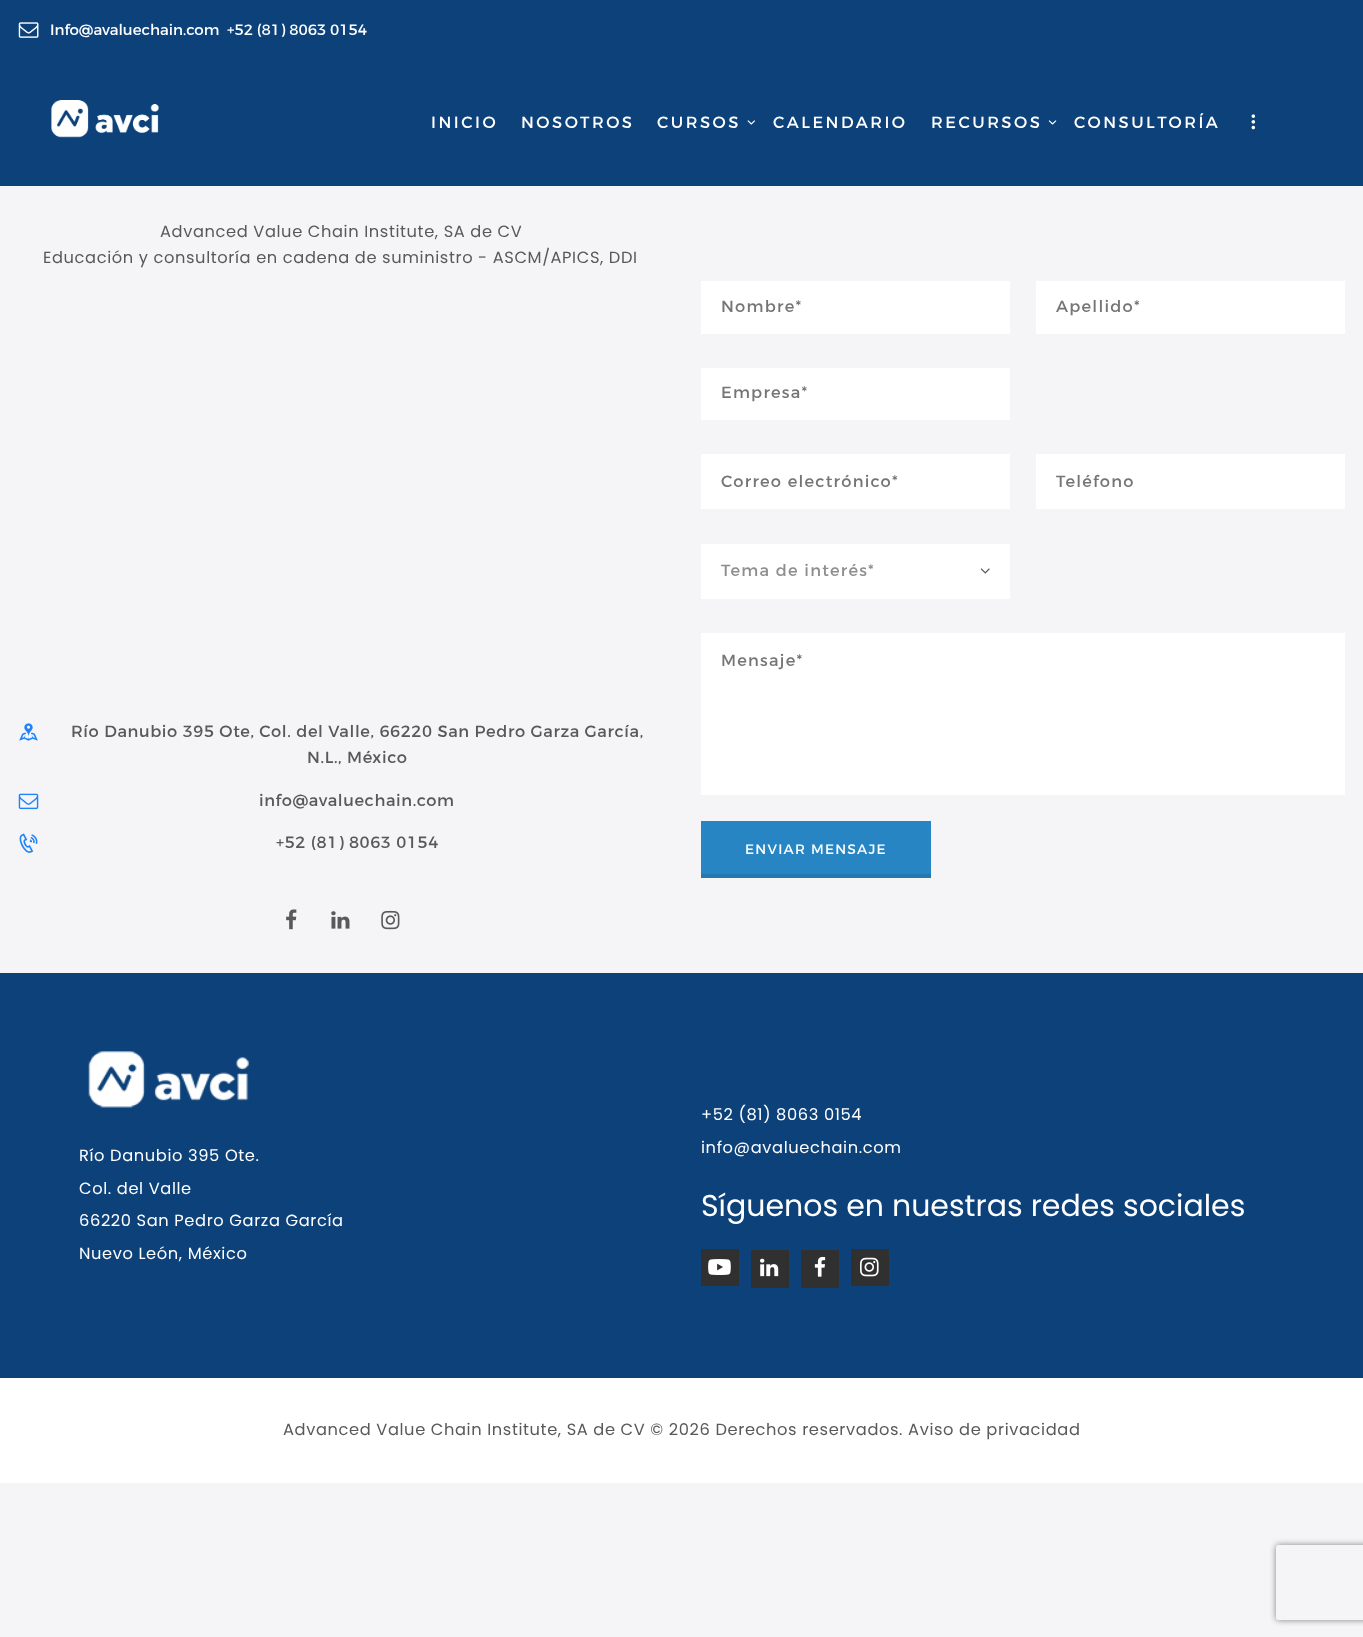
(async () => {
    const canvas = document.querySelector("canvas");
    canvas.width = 1363;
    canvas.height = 1637;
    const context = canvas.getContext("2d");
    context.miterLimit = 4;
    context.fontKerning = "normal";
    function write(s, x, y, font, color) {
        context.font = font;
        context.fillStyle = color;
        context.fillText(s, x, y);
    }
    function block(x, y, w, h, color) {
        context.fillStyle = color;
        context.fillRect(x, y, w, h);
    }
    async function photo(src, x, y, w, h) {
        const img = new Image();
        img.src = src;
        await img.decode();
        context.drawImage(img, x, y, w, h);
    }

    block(0, 0, 1363, 1637, "rgb(245, 245, 247)");
    block(0, 0, 1363, 186, "rgb(12, 65, 122)");
    await photo("media/1.png", 18, 22, 21, 16);
    write("Info@avaluechain.com", 50, 35, "15px Montserrat", "rgb(255, 255, 255)");
    write("+52 (81) 8063 0154", 227, 35, "15px Montserrat", "rgb(255, 255, 255)");
    await photo("media/2.png", 51, 100, 108, 38);
    context.letterSpacing = "2.5px";
    write("INICIO", 431, 128, "16.25px Montserrat", "rgb(255, 255, 255)");
    write("NOSOTROS", 521, 128, "16.25px Montserrat", "rgb(255, 255, 255)");
    write("CURSOS", 657, 128, "16.25px Montserrat", "rgb(255, 255, 255)");
    await photo("media/3.png", 747, 120, 8, 5);
    write("CALENDARIO", 773, 128, "16.25px Montserrat", "rgb(255, 255, 255)");
    write("RECURSOS", 931, 128, "16.25px Montserrat", "rgb(255, 255, 255)");
    await photo("media/4.png", 1048, 120, 9, 5);
    write("CONSULTORÍA", 1074, 128, "16.25px Montserrat", "rgb(255, 255, 255)");
    await photo("media/5.png", 1251, 114, 5, 16);
    context.letterSpacing = "0.62px";
    write("Advanced Value Chain Institute, SA de CV", 160, 237, "16.25px Poppins", "rgb(89, 89, 89)");
    write("Educación y consultoría en cadena de suministro - ASCM/APICS, DDI", 43, 263, "16.25px Poppins", "rgb(89, 89, 89)");
    await photo("media/6.png", 19, 723, 19, 18);
    write("Río Danubio 395 Ote, Col. del Valle, 66220 San Pedro Garza García,", 71, 737, "16.25px Montserrat", "rgb(89, 89, 89)");
    write("N.L., México", 307, 763, "16.25px Montserrat", "rgb(89, 89, 89)");
    await photo("media/7.png", 18, 793, 21, 17);
    write("info@avaluechain.com", 259, 806, "16.25px Montserrat", "rgb(89, 89, 89)");
    await photo("media/8.png", 19, 833, 19, 20);
    write("+52 (81) 8063 0154", 276, 848, "16.25px Montserrat", "rgb(89, 89, 89)");
    await photo("media/9.png", 286, 909, 11, 21);
    await photo("media/10.png", 331, 911, 19, 18);
    await photo("media/11.png", 381, 910, 19, 20);
    block(701, 281, 309, 53, "rgb(255, 255, 255)");
    context.letterSpacing = "1.25px";
    write("Nombre*", 721, 312, "16.25px Montserrat", "rgb(117, 117, 117)");
    block(1036, 281, 309, 53, "rgb(255, 255, 255)");
    write("Apellido*", 1056, 312, "16.25px Montserrat", "rgb(117, 117, 117)");
    block(701, 368, 309, 52, "rgb(255, 255, 255)");
    write("Empresa*", 721, 398, "16.25px Montserrat", "rgb(117, 117, 117)");
    block(701, 454, 309, 55, "rgb(255, 255, 255)");
    write("Correo electrónico*", 721, 487, "16.25px Montserrat", "rgb(117, 117, 117)");
    block(1036, 454, 309, 55, "rgb(255, 255, 255)");
    write("Teléfono", 1056, 487, "16.25px Montserrat", "rgb(117, 117, 117)");
    block(701, 544, 309, 55, "rgb(255, 255, 255)");
    write("Tema de interés*", 721, 576, "16.25px Montserrat", "rgb(142, 142, 142)");
    await photo("media/12.png", 980, 568, 10, 6);
    block(701, 633, 644, 162, "rgb(255, 255, 255)");
    write("Mensaje*", 721, 666, "16.25px Montserrat", "rgb(117, 117, 117)");
    block(701, 821, 230, 53, "rgb(39, 133, 196)");
    block(701, 874, 230, 4, "rgb(35, 120, 176)");
    write("ENVIAR MENSAJE", 745, 854, "13.75px Montserrat", "rgb(255, 255, 255)");
    block(0, 973, 1363, 405, "rgb(12, 65, 122)");
    await photo("media/13.png", 88, 1051, 161, 57);
    context.letterSpacing = "0.62px";
    write("Río Danubio 395 Ote.", 79, 1161, "16.25px Poppins", "rgb(255, 255, 255)");
    write("Col. del Valle", 79, 1194, "16.25px Poppins", "rgb(255, 255, 255)");
    write("66220 San Pedro Garza García", 79, 1226, "16.25px Poppins", "rgb(255, 255, 255)");
    write("Nuevo León, México", 79, 1259, "16.25px Poppins", "rgb(255, 255, 255)");
    write("+52 (81) 8063 0154", 701, 1120, "16.25px Poppins", "rgb(255, 255, 255)");
    write("info@avaluechain.com", 701, 1153, "16.25px Poppins", "rgb(255, 255, 255)");
    context.letterSpacing = "0px";
    write("Síguenos en nuestras redes sociales", 701, 1216, "30px Poppins", "rgb(255, 255, 255)");
    block(701, 1249, 38, 37, "rgb(48, 48, 48)");
    await photo("media/14.png", 708, 1259, 23, 16);
    block(751, 1250, 38, 38, "rgb(48, 48, 48)");
    await photo("media/15.png", 760, 1258, 19, 19);
    block(801, 1250, 38, 38, "rgb(48, 48, 48)");
    await photo("media/16.png", 814, 1256, 12, 21);
    block(851, 1249, 38, 37, "rgb(48, 48, 48)");
    await photo("media/17.png", 860, 1257, 19, 20);
    block(0, 1378, 1363, 105, "rgb(255, 255, 255)");
    context.letterSpacing = "0.62px";
    write("Advanced Value Chain Institute, SA de CV © 2026 Derechos reservados. Aviso de privacidad", 283, 1435, "16.25px Poppins", "rgb(89, 89, 89)");
    context.save();
    context.beginPath();
    context.moveTo(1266, 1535);
    context.lineTo(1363, 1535);
    context.lineTo(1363, 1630);
    context.lineTo(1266, 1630);
    context.closePath();
    context.moveTo(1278.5, 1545);
    context.lineTo(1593.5, 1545);
    context.bezierCurveTo(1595, 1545, 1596, 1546, 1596, 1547.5);
    context.lineTo(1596, 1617.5);
    context.bezierCurveTo(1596, 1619, 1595, 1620, 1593.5, 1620);
    context.lineTo(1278.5, 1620);
    context.bezierCurveTo(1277, 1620, 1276, 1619, 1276, 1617.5);
    context.lineTo(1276, 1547.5);
    context.bezierCurveTo(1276, 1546, 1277, 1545, 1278.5, 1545);
    context.closePath();
    context.clip("evenodd");
    context.fillStyle = "rgb(128, 128, 128)";
    context.filter = "blur(3px)";
    context.beginPath();
    context.roundRect(1276, 1545, 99, 75, 2.5);
    context.fill();
    context.filter = "none";
    context.restore();
})();
